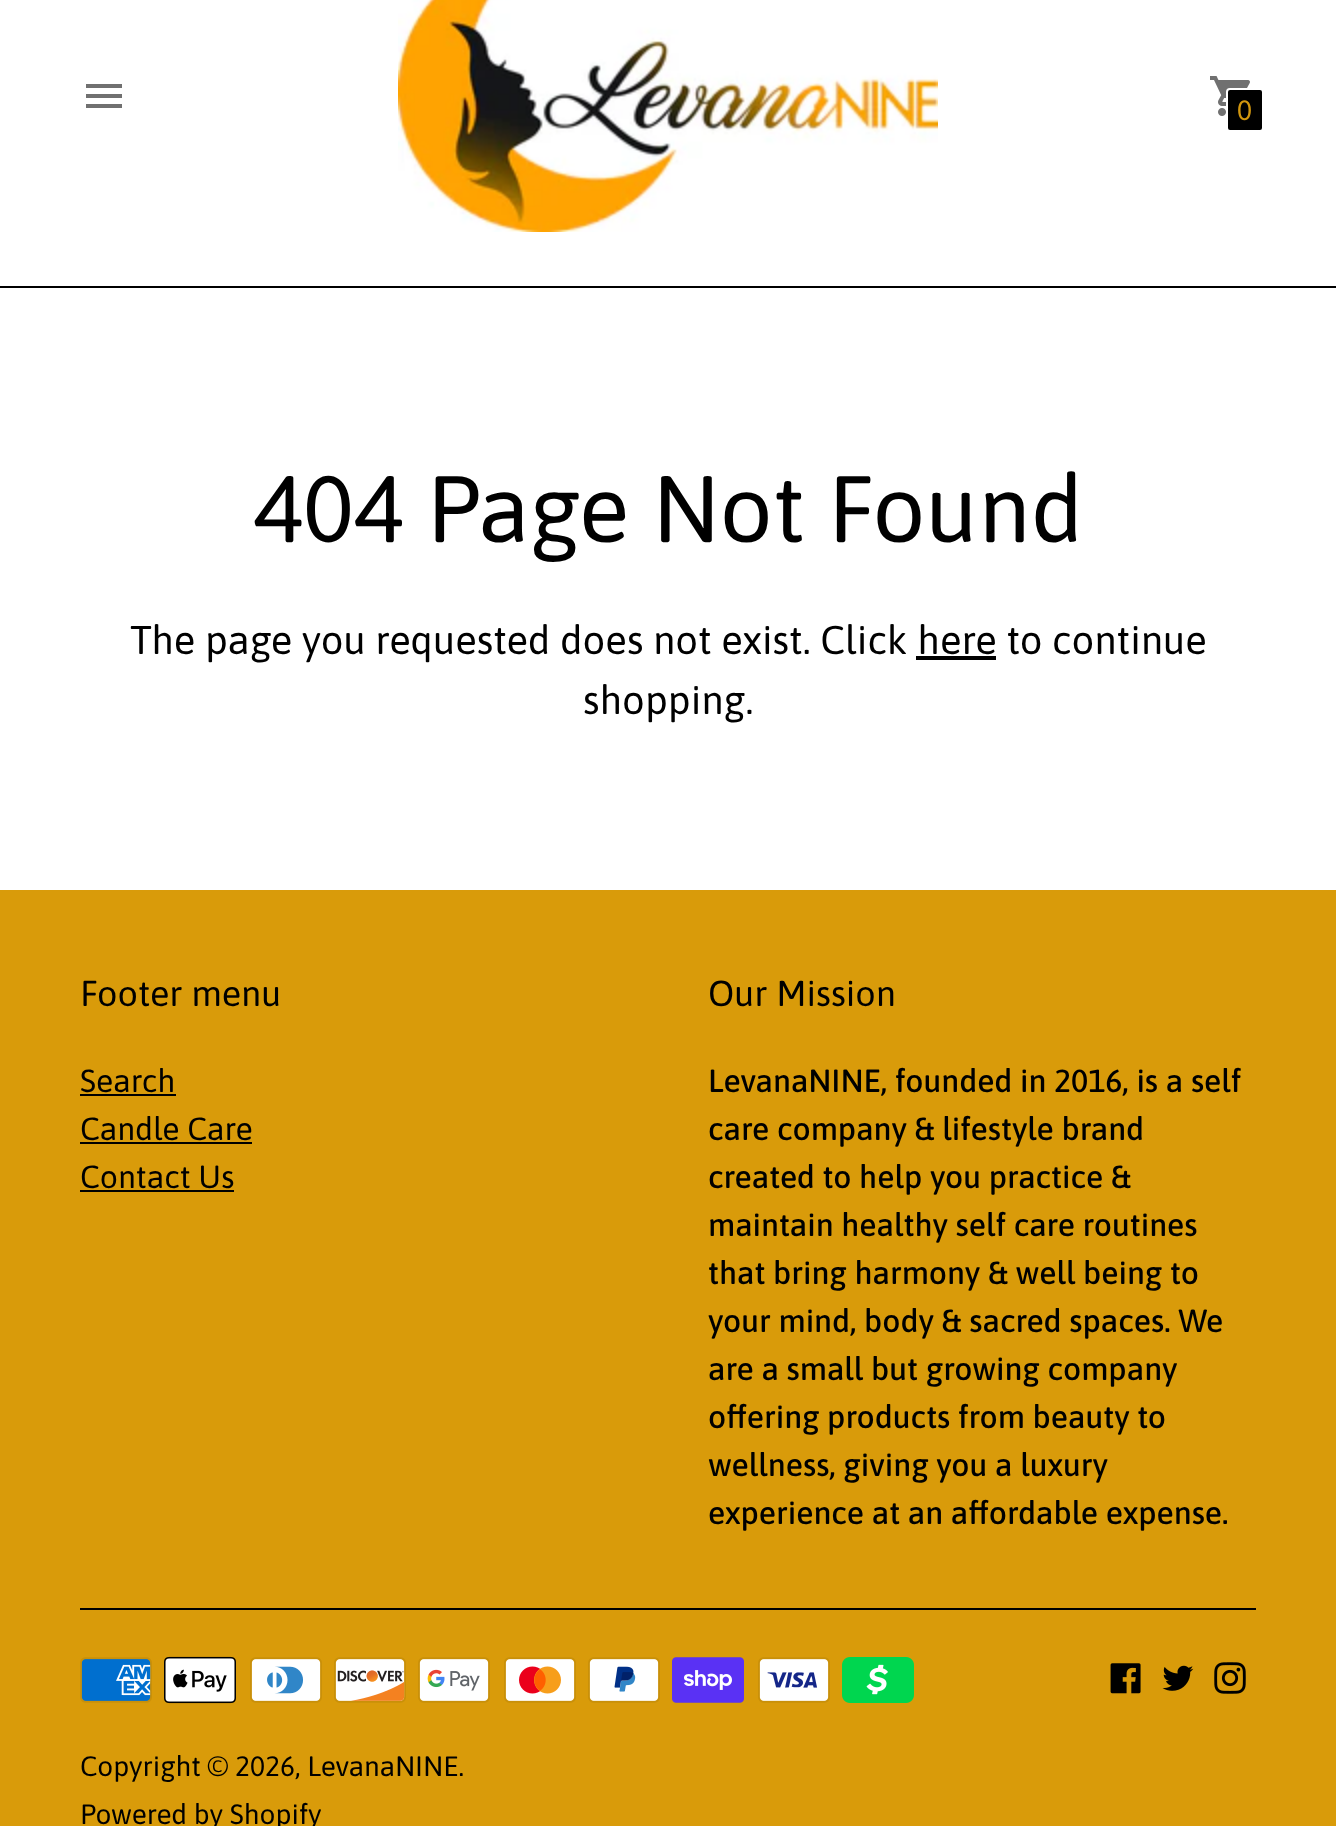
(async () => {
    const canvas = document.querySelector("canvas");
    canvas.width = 1336;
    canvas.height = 1826;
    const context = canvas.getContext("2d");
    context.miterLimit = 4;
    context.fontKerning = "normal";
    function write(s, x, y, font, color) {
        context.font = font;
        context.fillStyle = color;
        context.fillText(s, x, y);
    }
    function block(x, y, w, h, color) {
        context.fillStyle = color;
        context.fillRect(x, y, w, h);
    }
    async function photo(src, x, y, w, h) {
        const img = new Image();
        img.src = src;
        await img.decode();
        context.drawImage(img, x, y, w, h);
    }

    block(0, 0, 1336, 1826, "rgb(255, 255, 255)");
    block(0, 286, 1336, 2, "rgb(0, 0, 0)");
    context.fillStyle = "rgb(112, 112, 112)";
    context.beginPath();
    context.moveTo(86, 108);
    context.lineTo(122, 108);
    context.lineTo(122, 104);
    context.lineTo(86, 104);
    context.closePath();
    context.moveTo(86, 98);
    context.lineTo(122, 98);
    context.lineTo(122, 94);
    context.lineTo(86, 94);
    context.closePath();
    context.moveTo(86, 84);
    context.lineTo(86, 88);
    context.lineTo(122, 88);
    context.lineTo(122, 84);
    context.closePath();
    context.fill();
    await photo("media/1.png", 398, 0, 540, 232);
    await photo("media/2.png", 1210, 76, 40, 40);
    context.fillStyle = "rgb(0, 0, 0)";
    context.beginPath();
    context.roundRect(1227, 89, 36, 42, 3);
    context.fill();
    context.strokeStyle = "rgb(255, 255, 255)";
    context.lineWidth = 2;
    context.stroke();
    write("0", 1237, 120, "28px Asap", "rgb(209, 150, 14)");
    write("404 Page Not Found", 253, 542, "94px Asap", "rgb(0, 0, 0)");
    write("The page you requested does not exist. Click here to continue", 130, 654, "40px Asap", "rgb(0, 0, 0)");
    block(916, 656, 80, 4, "rgb(0, 0, 0)");
    write("shopping.", 583, 714, "40px Asap", "rgb(0, 0, 0)");
    block(0, 890, 1336, 936, "rgb(217, 155, 10)");
    write("Footer menu", 80, 1006, "36px Asap", "rgb(0, 0, 0)");
    write("Search", 80, 1092, "32px Asap", "rgb(0, 0, 0)");
    block(80, 1094, 96, 2, "rgb(0, 0, 0)");
    write("Candle Care", 80, 1140, "32px Asap", "rgb(0, 0, 0)");
    block(80, 1142, 172, 2, "rgb(0, 0, 0)");
    write("Contact Us", 80, 1188, "32px Asap", "rgb(0, 0, 0)");
    block(80, 1190, 154, 2, "rgb(0, 0, 0)");
    write("Our Mission", 708, 1006, "36px Asap", "rgb(0, 0, 0)");
    write("LevanaNINE, founded in 2016, is a self", 708, 1092, "500 32px Asap", "rgb(0, 0, 0)");
    write("care company & lifestyle brand", 708, 1140, "500 32px Asap", "rgb(0, 0, 0)");
    write("created to help you practice &", 708, 1188, "500 32px Asap", "rgb(0, 0, 0)");
    write("maintain healthy self care routines", 708, 1236, "500 32px Asap", "rgb(0, 0, 0)");
    write("that bring harmony & well being to", 708, 1284, "500 32px Asap", "rgb(0, 0, 0)");
    write("your mind, body & sacred spaces. We", 708, 1332, "500 32px Asap", "rgb(0, 0, 0)");
    write("are a small but growing company", 708, 1380, "500 32px Asap", "rgb(0, 0, 0)");
    write("offering products from beauty to", 708, 1428, "500 32px Asap", "rgb(0, 0, 0)");
    write("wellness, giving you a luxury", 708, 1476, "500 32px Asap", "rgb(0, 0, 0)");
    write("experience at an affordable expense.", 708, 1524, "500 32px Asap", "rgb(0, 0, 0)");
    block(80, 1608, 1176, 2, "rgb(0, 0, 0)");
    await photo("media/3.png", 1110, 1663, 31, 31);
    await photo("media/4.png", 1162, 1665, 32, 26);
    await photo("media/5.png", 1214, 1662, 32, 32);
    await photo("media/6.png", 80, 1657, 72, 46);
    await photo("media/7.png", 164, 1656, 72, 48);
    await photo("media/8.png", 250, 1657, 72, 46);
    await photo("media/9.png", 334, 1657, 72, 46);
    await photo("media/10.png", 418, 1657, 72, 46);
    await photo("media/11.png", 504, 1657, 72, 46);
    await photo("media/12.png", 588, 1657, 72, 46);
    await photo("media/13.png", 672, 1657, 72, 46);
    await photo("media/14.png", 758, 1657, 72, 46);
    await photo("media/15.png", 842, 1657, 72, 46);
    write("Copyright © 2026, LevanaNINE.", 80, 1776, "28px Asap", "rgb(0, 0, 0)");
    write("Powered by Shopify", 80, 1824, "28px Asap", "rgb(0, 0, 0)");
})();
